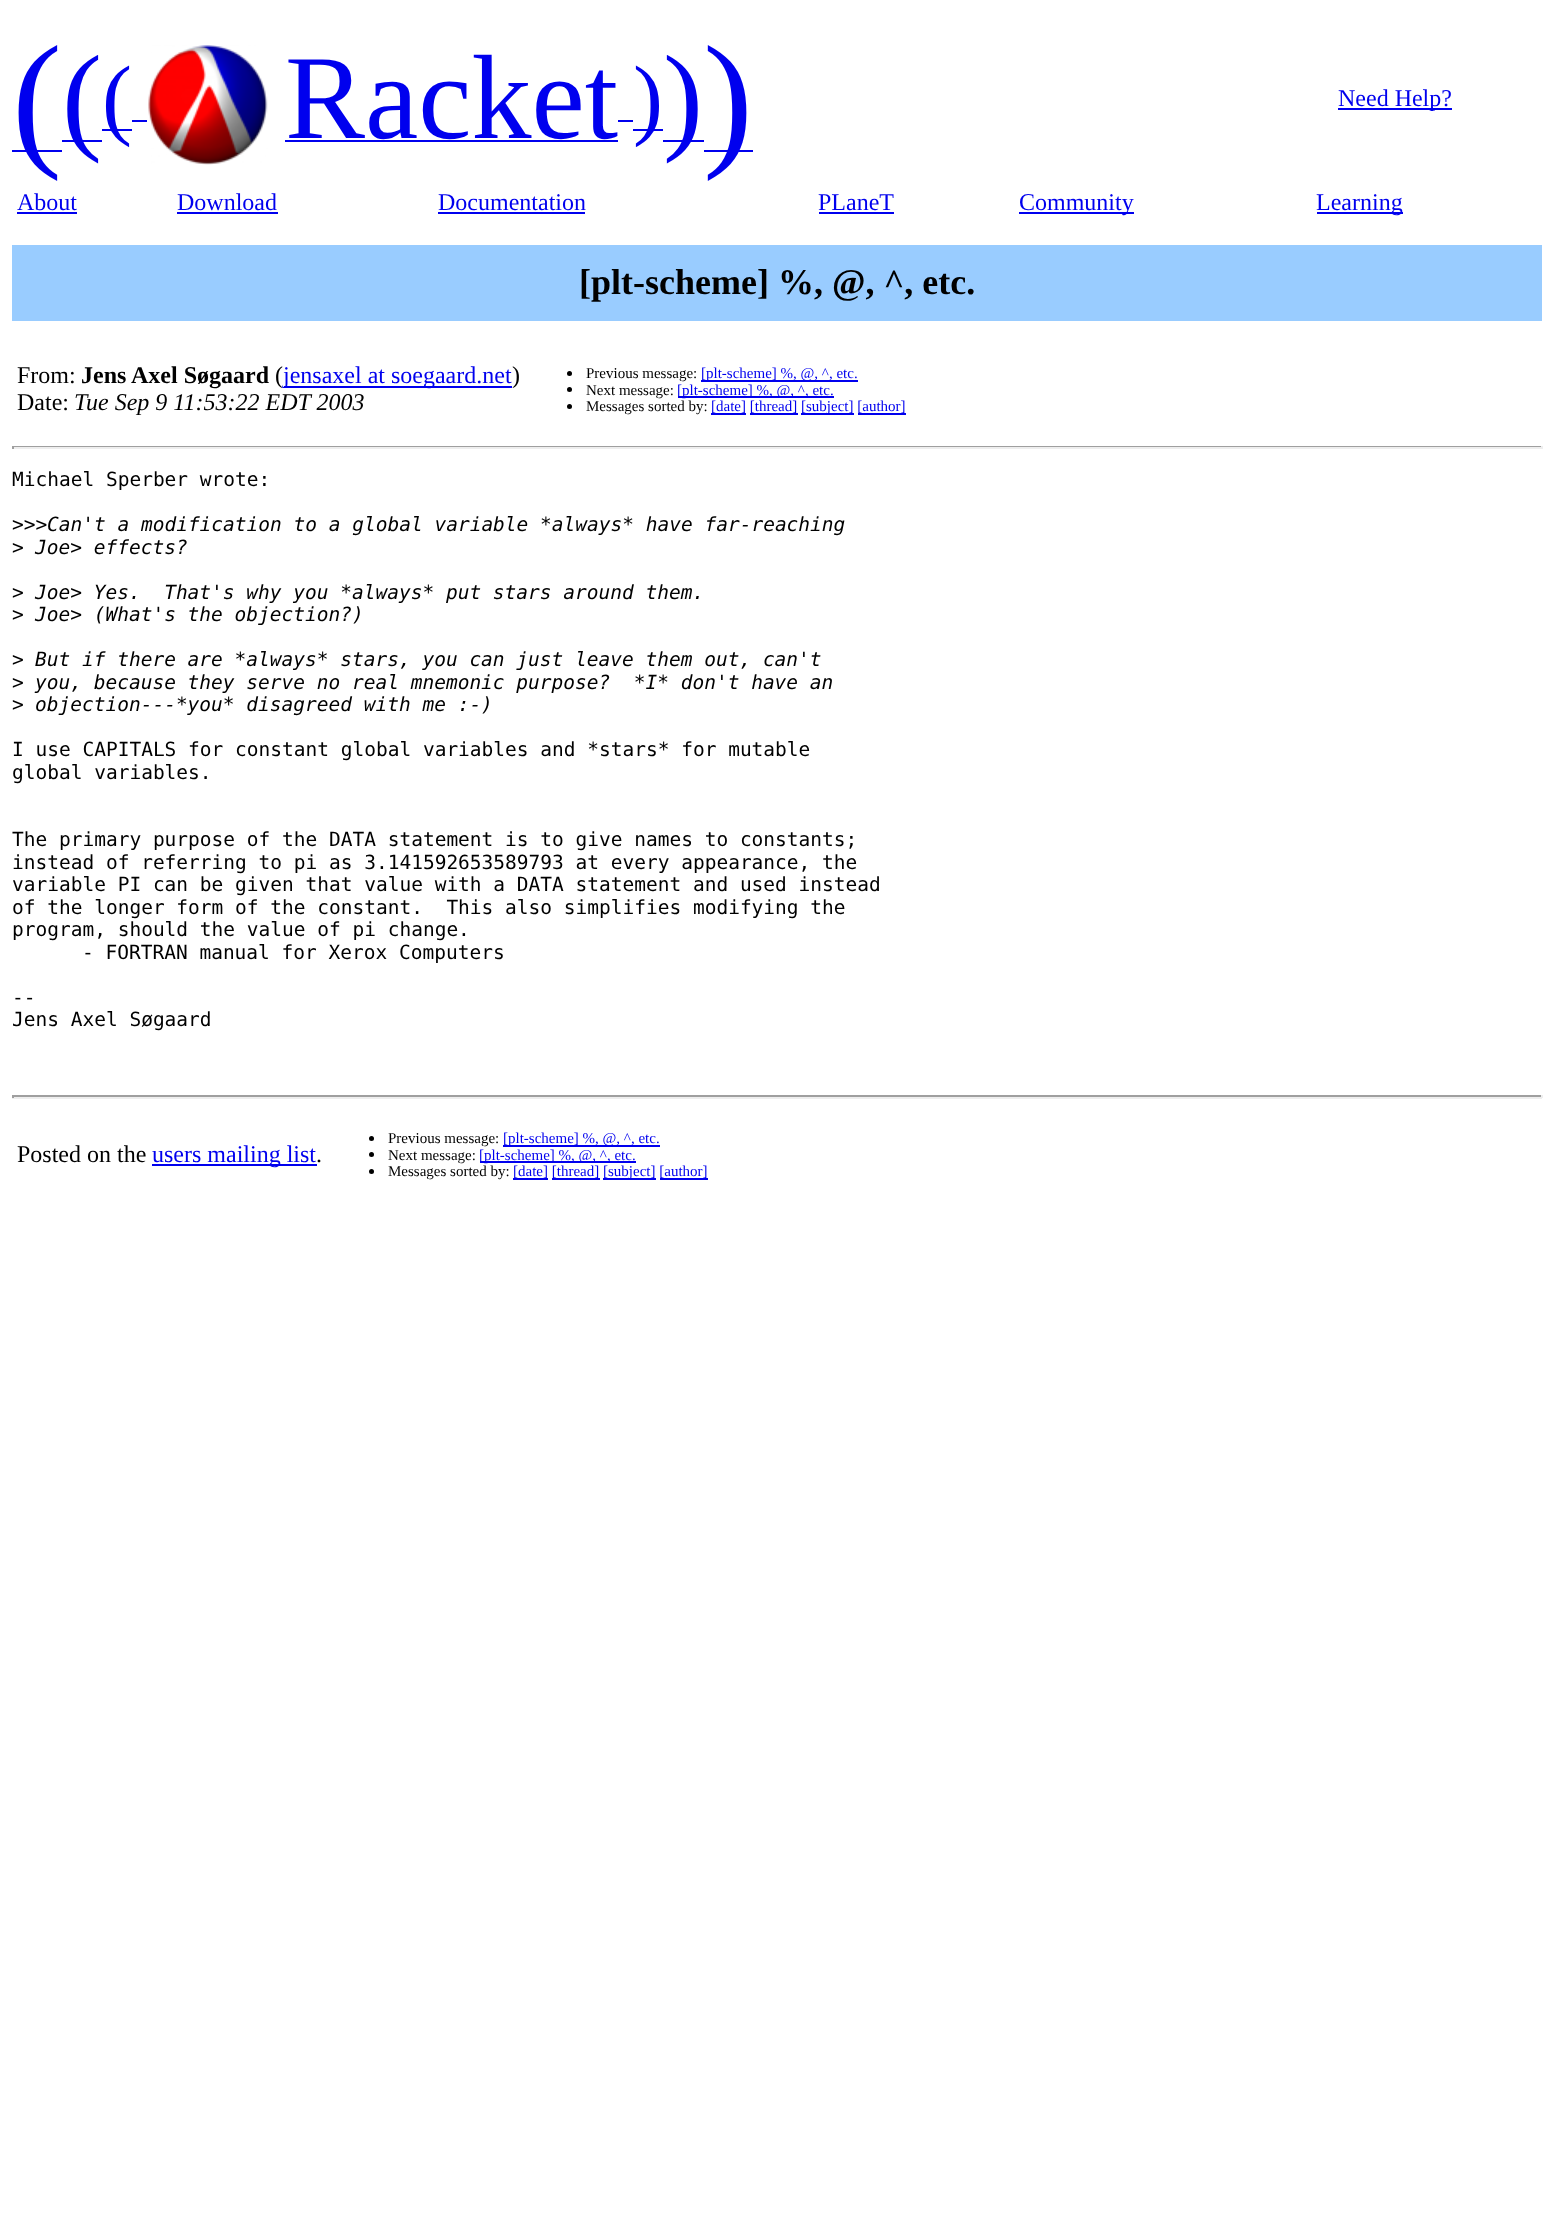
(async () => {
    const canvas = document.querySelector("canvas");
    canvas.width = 1553;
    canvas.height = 2213;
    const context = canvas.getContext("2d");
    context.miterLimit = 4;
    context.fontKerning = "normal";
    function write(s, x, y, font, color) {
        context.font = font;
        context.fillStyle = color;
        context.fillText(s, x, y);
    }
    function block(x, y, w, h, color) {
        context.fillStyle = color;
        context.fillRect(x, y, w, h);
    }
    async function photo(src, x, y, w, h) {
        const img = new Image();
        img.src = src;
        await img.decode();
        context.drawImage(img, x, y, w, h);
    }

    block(0, 0, 1553, 2213, "rgb(255, 255, 255)");
    block(12, 150, 50, 2, "rgb(0, 0, 238)");
    write("(", 12, 149, "150px Liberation Serif", "rgb(0, 0, 238)");
    block(62, 140, 40, 2, "rgb(0, 0, 238)");
    write("(", 62, 138, "120px Liberation Serif", "rgb(0, 0, 238)");
    block(102, 129, 30, 2, "rgb(0, 0, 238)");
    write("(", 102, 128, "90px Liberation Serif", "rgb(0, 0, 238)");
    block(132, 120, 15, 2, "rgb(0, 0, 238)");
    await photo("media/1.png", 148, 45, 120, 120);
    write("Racket", 285, 138, "120px Liberation Serif", "rgb(0, 0, 238)");
    block(633, 129, 30, 2, "rgb(0, 0, 238)");
    write(")", 633, 128, "90px Liberation Serif", "rgb(0, 0, 238)");
    block(285, 140, 333, 2, "rgb(0, 0, 238)");
    block(618, 120, 15, 2, "rgb(0, 0, 238)");
    block(663, 140, 41, 2, "rgb(0, 0, 238)");
    write(")", 663, 138, "120px Liberation Serif", "rgb(0, 0, 238)");
    block(704, 150, 49, 2, "rgb(0, 0, 238)");
    write(")", 703, 149, "150px Liberation Serif", "rgb(0, 0, 238)");
    block(1338, 108, 114, 2, "rgb(0, 0, 238)");
    write("Need Help?", 1338, 106, "24px Liberation Serif", "rgb(0, 0, 238)");
    write("About", 17, 210, "24px Liberation Serif", "rgb(0, 0, 238)");
    block(17, 212, 60, 2, "rgb(0, 0, 238)");
    write("Download", 177, 210, "24px Liberation Serif", "rgb(0, 0, 238)");
    block(177, 212, 101, 2, "rgb(0, 0, 238)");
    write("Documentation", 438, 210, "24px Liberation Serif", "rgb(0, 0, 238)");
    block(438, 212, 147, 2, "rgb(0, 0, 238)");
    write("PLaneT", 818, 210, "24px Liberation Serif", "rgb(0, 0, 238)");
    block(819, 212, 75, 2, "rgb(0, 0, 238)");
    block(1019, 212, 115, 2, "rgb(0, 0, 238)");
    write("Community", 1019, 210, "24px Liberation Serif", "rgb(0, 0, 238)");
    block(1317, 212, 86, 2, "rgb(0, 0, 238)");
    write("Learning", 1316, 210, "24px Liberation Serif", "rgb(0, 0, 238)");
    block(12, 245, 1530, 76, "rgb(153, 204, 255)");
    write("[plt-scheme] %, @, ^, etc.", 579, 294, "bold 36px Liberation Serif", "rgb(0, 0, 0)");
    write("From:", 17, 383, "24px Liberation Serif", "rgb(0, 0, 0)");
    write("Jens Axel Søgaard", 81, 383, "bold 24px Liberation Serif", "rgb(0, 0, 0)");
    write("(", 275, 383, "24px Liberation Serif", "rgb(0, 0, 0)");
    block(284, 386, 228, 2, "rgb(0, 0, 238)");
    write("jensaxel at soegaard.net", 283, 383, "24px Liberation Serif", "rgb(0, 0, 238)");
    write(")", 512, 383, "24px Liberation Serif", "rgb(0, 0, 0)");
    write("Date:", 17, 410, "24px Liberation Serif", "rgb(0, 0, 0)");
    write("Tue Sep 9 11:53:22 EDT 2003", 74, 410, "italic 24px Liberation Serif", "rgb(0, 0, 0)");
    context.beginPath();
    context.arc(569.5, 373.5, 2.5, 0, Math.PI * 2);
    context.fill();
    write("Previous message:", 586, 378, "15px Liberation Serif", "rgb(0, 0, 0)");
    block(701, 380, 157, 2, "rgb(0, 0, 238)");
    write("[plt-scheme] %, @, ^, etc.", 701, 378, "15px Liberation Serif", "rgb(0, 0, 238)");
    context.fillStyle = "rgb(0, 0, 0)";
    context.beginPath();
    context.arc(569.5, 389.5, 2.5, 0, Math.PI * 2);
    context.fill();
    write("Next message:", 586, 395, "15px Liberation Serif", "rgb(0, 0, 0)");
    block(678, 396, 156, 2, "rgb(0, 0, 238)");
    write("[plt-scheme] %, @, ^, etc.", 677, 395, "15px Liberation Serif", "rgb(0, 0, 238)");
    context.fillStyle = "rgb(0, 0, 0)";
    context.beginPath();
    context.arc(569.5, 406.5, 2.5, 0, Math.PI * 2);
    context.fill();
    write("Messages sorted by:", 586, 411, "15px Liberation Serif", "rgb(0, 0, 0)");
    write("[date] [thread]", 711, 411, "15px Liberation Serif", "rgb(0, 0, 238)");
    block(711, 413, 35, 2, "rgb(0, 0, 238)");
    block(801, 413, 53, 2, "rgb(0, 0, 238)");
    write("[subject] [author]", 801, 411, "15px Liberation Serif", "rgb(0, 0, 238)");
    block(750, 413, 48, 2, "rgb(0, 0, 238)");
    block(858, 413, 48, 2, "rgb(0, 0, 238)");
    block(12, 446, 1530, 1, "rgb(159, 159, 159)");
    block(1541, 446, 2, 3, "rgb(238, 238, 238)");
    block(12, 447, 1530, 2, "rgb(238, 238, 238)");
    block(12, 446, 2, 3, "rgb(159, 159, 159)");
    write("Michael Sperber wrote:", 12, 486, "19.5px DejaVu Sans Mono", "rgb(0, 0, 0)");
    write(">>>", 12, 531, "19.5px DejaVu Sans Mono", "rgb(0, 0, 0)");
    write("Can't a modification to a global variable *always* have far-reaching", 47, 531, "italic 19.5px DejaVu Sans Mono", "rgb(0, 0, 0)");
    write(">", 12, 554, "19.5px DejaVu Sans Mono", "rgb(0, 0, 0)");
    write("Joe> effects?", 35, 554, "italic 19.5px DejaVu Sans Mono", "rgb(0, 0, 0)");
    write(">", 12, 599, "19.5px DejaVu Sans Mono", "rgb(0, 0, 0)");
    write("Joe> Yes.  That's why you *always* put stars around them.", 35, 599, "italic 19.5px DejaVu Sans Mono", "rgb(0, 0, 0)");
    write(">", 12, 621, "19.5px DejaVu Sans Mono", "rgb(0, 0, 0)");
    write("Joe> (What's the objection?)", 35, 621, "italic 19.5px DejaVu Sans Mono", "rgb(0, 0, 0)");
    write(">", 12, 666, "19.5px DejaVu Sans Mono", "rgb(0, 0, 0)");
    write("But if there are *always* stars, you can just leave them out, can't", 35, 666, "italic 19.5px DejaVu Sans Mono", "rgb(0, 0, 0)");
    write(">", 12, 689, "19.5px DejaVu Sans Mono", "rgb(0, 0, 0)");
    write("you, because they serve no real mnemonic purpose?  *I* don't have an", 35, 689, "italic 19.5px DejaVu Sans Mono", "rgb(0, 0, 0)");
    write(">", 12, 711, "19.5px DejaVu Sans Mono", "rgb(0, 0, 0)");
    write("objection---*you* disagreed with me :-)", 35, 711, "italic 19.5px DejaVu Sans Mono", "rgb(0, 0, 0)");
    write("I use CAPITALS for constant global variables and *stars* for mutable", 12, 756, "19.5px DejaVu Sans Mono", "rgb(0, 0, 0)");
    write("global variables.", 12, 779, "19.5px DejaVu Sans Mono", "rgb(0, 0, 0)");
    write("The primary purpose of the DATA statement is to give names to constants;", 12, 846, "19.5px DejaVu Sans Mono", "rgb(0, 0, 0)");
    write("instead of referring to pi as 3.141592653589793 at every appearance, the", 12, 869, "19.5px DejaVu Sans Mono", "rgb(0, 0, 0)");
    write("variable PI can be given that value with a DATA statement and used instead", 12, 891, "19.5px DejaVu Sans Mono", "rgb(0, 0, 0)");
    write("of the longer form of the constant.  This also simplifies modifying the", 12, 914, "19.5px DejaVu Sans Mono", "rgb(0, 0, 0)");
    write("program, should the value of pi change.", 12, 936, "19.5px DejaVu Sans Mono", "rgb(0, 0, 0)");
    write("- FORTRAN manual for Xerox Computers", 82, 959, "19.5px DejaVu Sans Mono", "rgb(0, 0, 0)");
    write("--", 12, 1004, "19.5px DejaVu Sans Mono", "rgb(0, 0, 0)");
    write("Jens Axel Søgaard", 12, 1026, "19.5px DejaVu Sans Mono", "rgb(0, 0, 0)");
    block(12, 1095, 1530, 2, "rgb(159, 159, 159)");
    block(1541, 1095, 2, 3, "rgb(238, 238, 238)");
    block(12, 1097, 1530, 2, "rgb(238, 238, 238)");
    block(12, 1095, 2, 3, "rgb(159, 159, 159)");
    write("Posted on the", 17, 1162, "24px Liberation Serif", "rgb(0, 0, 0)");
    block(152, 1164, 165, 2, "rgb(0, 0, 238)");
    write("users mailing list", 152, 1162, "24px Liberation Serif", "rgb(0, 0, 238)");
    write(".", 316, 1162, "24px Liberation Serif", "rgb(0, 0, 0)");
    context.beginPath();
    context.arc(371.5, 1138.5, 2.5, 0, Math.PI * 2);
    context.fill();
    write("Previous message:", 388, 1143, "15px Liberation Serif", "rgb(0, 0, 0)");
    block(503, 1145, 157, 2, "rgb(0, 0, 238)");
    write("[plt-scheme] %, @, ^, etc.", 503, 1143, "15px Liberation Serif", "rgb(0, 0, 238)");
    context.fillStyle = "rgb(0, 0, 0)";
    context.beginPath();
    context.arc(371.5, 1154.5, 2.5, 0, Math.PI * 2);
    context.fill();
    write("Next message:", 388, 1160, "15px Liberation Serif", "rgb(0, 0, 0)");
    block(480, 1161, 156, 2, "rgb(0, 0, 238)");
    write("[plt-scheme] %, @, ^, etc.", 479, 1160, "15px Liberation Serif", "rgb(0, 0, 238)");
    context.fillStyle = "rgb(0, 0, 0)";
    context.beginPath();
    context.arc(371.5, 1171.5, 2.5, 0, Math.PI * 2);
    context.fill();
    write("Messages sorted by:", 388, 1176, "15px Liberation Serif", "rgb(0, 0, 0)");
    write("[date] [thread]", 513, 1176, "15px Liberation Serif", "rgb(0, 0, 238)");
    block(513, 1178, 35, 2, "rgb(0, 0, 238)");
    block(603, 1178, 53, 2, "rgb(0, 0, 238)");
    write("[subject] [author]", 603, 1176, "15px Liberation Serif", "rgb(0, 0, 238)");
    block(552, 1178, 48, 2, "rgb(0, 0, 238)");
    block(660, 1178, 48, 2, "rgb(0, 0, 238)");
})();
